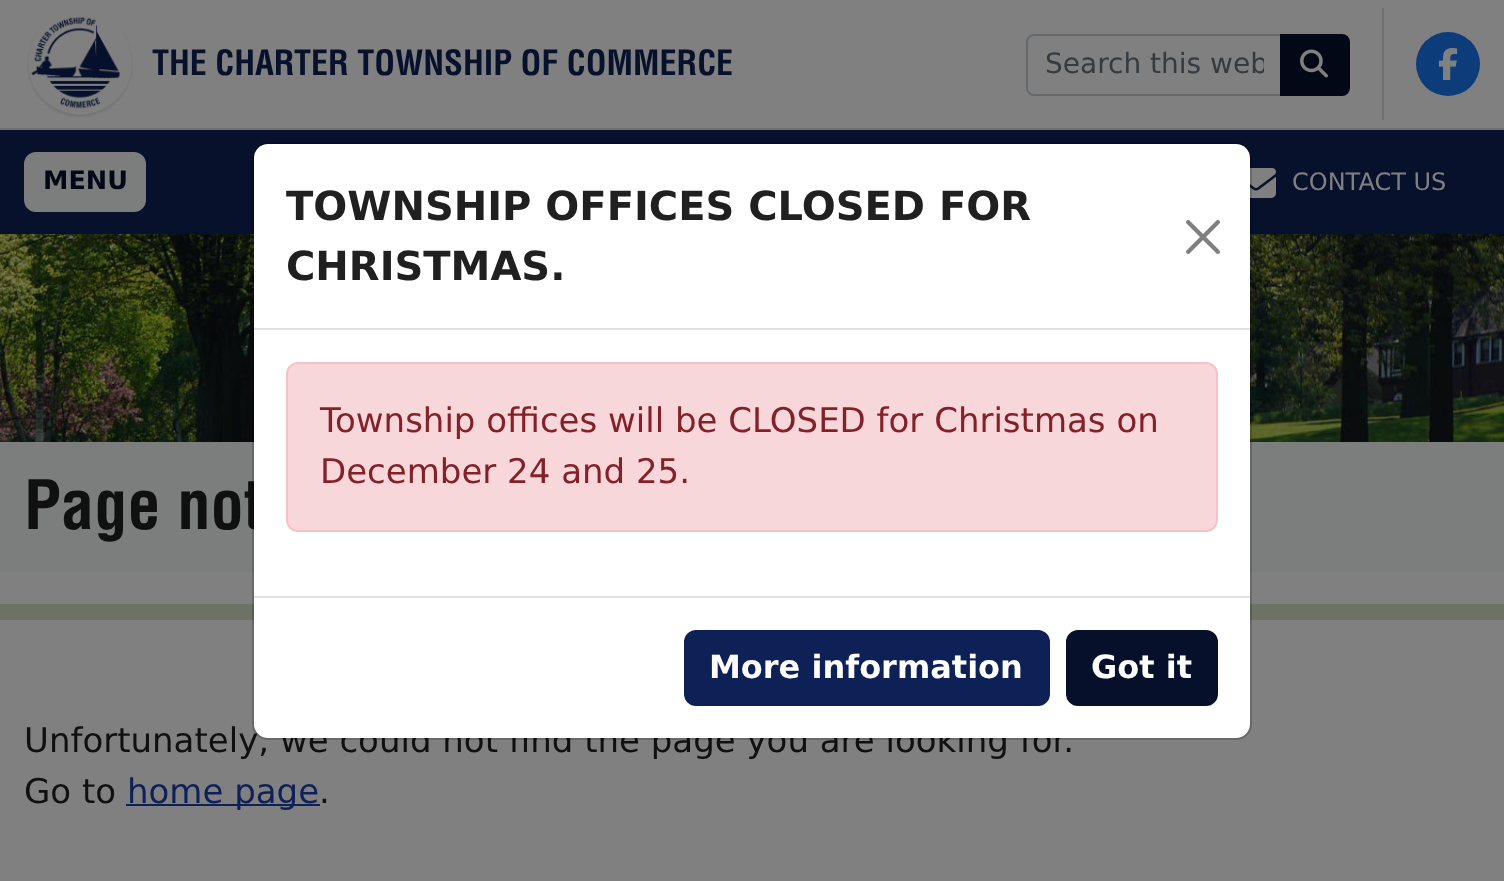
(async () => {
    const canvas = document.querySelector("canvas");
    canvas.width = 1504;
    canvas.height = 881;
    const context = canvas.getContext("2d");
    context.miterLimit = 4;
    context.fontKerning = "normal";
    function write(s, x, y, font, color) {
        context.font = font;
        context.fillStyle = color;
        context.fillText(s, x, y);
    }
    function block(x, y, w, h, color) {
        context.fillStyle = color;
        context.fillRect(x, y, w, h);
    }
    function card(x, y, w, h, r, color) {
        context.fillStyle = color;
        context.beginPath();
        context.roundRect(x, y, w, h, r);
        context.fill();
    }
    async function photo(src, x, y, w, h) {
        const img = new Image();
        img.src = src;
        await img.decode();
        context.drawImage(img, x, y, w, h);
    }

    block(0, 0, 1504, 881, "rgb(128, 128, 128)");
    block(0, 128, 1504, 2, "rgb(111, 113, 115)");
    await photo("media/1.png", 27, 16, 106, 101);
    write("THE CHARTER TOWNSHIP OF COMMERCE", 152, 75, "bold 34px Helvetica", "rgb(7, 17, 44)");
    context.beginPath();
    context.roundRect(1027, 35, 254, 60, [7, 0, 0, 7]);
    context.strokeStyle = "rgb(103, 106, 109)";
    context.lineWidth = 2;
    context.stroke();
    context.save();
    context.beginPath();
    context.rect(1044, 48, 220, 32);
    context.clip();
    write("Search this web", 1045, 73, "28px DejaVu Sans", "rgb(54, 59, 63)");
    context.restore();
    context.fillStyle = "rgb(3, 8, 22)";
    context.beginPath();
    context.roundRect(1281, 35, 68, 60, [0, 7, 7, 0]);
    context.fill();
    context.strokeStyle = "rgb(3, 8, 22)";
    context.stroke();
    await photo("media/2.png", 1300, 49, 28, 29);
    block(1382, 8, 2, 112, "rgb(111, 113, 115)");
    context.fillStyle = "rgb(12, 60, 121)";
    context.beginPath();
    context.arc(1448, 64, 32, 0, Math.PI * 2);
    context.fill();
    await photo("media/3.png", 1438, 48, 20, 32);
    block(0, 130, 1504, 104, "rgb(7, 17, 44)");
    context.fillStyle = "rgb(124, 125, 125)";
    context.beginPath();
    context.roundRect(25, 153, 120, 58, 11);
    context.fill();
    context.strokeStyle = "rgb(124, 125, 125)";
    context.stroke();
    write("MENU", 43, 189, "bold 25.5px DejaVu Sans", "rgb(3, 8, 22)");
    await photo("media/4.png", 1250, 168, 26, 30);
    write("CONTACT US", 1292, 190, "24px DejaVu Sans", "rgb(128, 128, 128)");
    block(0, 604, 1504, 16, "rgb(108, 114, 100)");
    await photo("media/5.png", 0, 234, 1504, 208);
    block(0, 442, 1504, 130, "rgb(124, 125, 125)");
    write("Page not", 24, 529, "bold 66.5px Helvetica", "rgb(16, 16, 16)");
    write("Unfortunately, we could not find the page you are looking for.", 24, 752, "34px DejaVu Sans", "rgb(16, 16, 16)");
    card(254, 144, 996, 594, 14, "rgb(255, 255, 255)");
    context.beginPath();
    context.roundRect(253, 143, 998, 596, 15);
    context.strokeStyle = "rgba(0, 0, 0, 0.18)";
    context.stroke();
    block(254, 328, 996, 2, "rgb(222, 226, 230)");
    write("TOWNSHIP OFFICES CLOSED FOR", 286, 220, "bold 40px DejaVu Sans", "rgb(32, 32, 32)");
    write("CHRISTMAS.", 286, 280, "bold 40px DejaVu Sans", "rgb(32, 32, 32)");
    await photo("media/6.png", 1186, 220, 34, 34);
    context.fillStyle = "rgb(248, 215, 218)";
    context.beginPath();
    context.roundRect(287, 363, 930, 168, 11);
    context.fill();
    context.strokeStyle = "rgb(245, 194, 199)";
    context.stroke();
    write("Township offices will be CLOSED for Christmas on", 320, 432, "34px DejaVu Sans", "rgb(132, 32, 41)");
    write("December 24 and 25.", 320, 483, "34px DejaVu Sans", "rgb(132, 32, 41)");
    block(254, 596, 996, 2, "rgb(222, 226, 230)");
    context.fillStyle = "rgb(13, 33, 87)";
    context.beginPath();
    context.roundRect(685, 631, 364, 74, 11);
    context.fill();
    context.strokeStyle = "rgb(13, 33, 87)";
    context.stroke();
    write("More information", 709, 678, "bold 32px DejaVu Sans", "rgb(255, 255, 255)");
    context.fillStyle = "rgb(6, 16, 43)";
    context.beginPath();
    context.roundRect(1067, 631, 150, 74, 11);
    context.fill();
    context.strokeStyle = "rgb(6, 16, 43)";
    context.stroke();
    write("Got it", 1091, 678, "bold 32px DejaVu Sans", "rgb(255, 255, 255)");
    write("Go to", 24, 803, "34px DejaVu Sans", "rgb(16, 16, 16)");
    block(126, 804, 194, 2, "rgb(13, 33, 88)");
    write("home page", 127, 803, "34px DejaVu Sans", "rgb(13, 33, 88)");
    write(".", 319, 803, "34px DejaVu Sans", "rgb(16, 16, 16)");
})();
